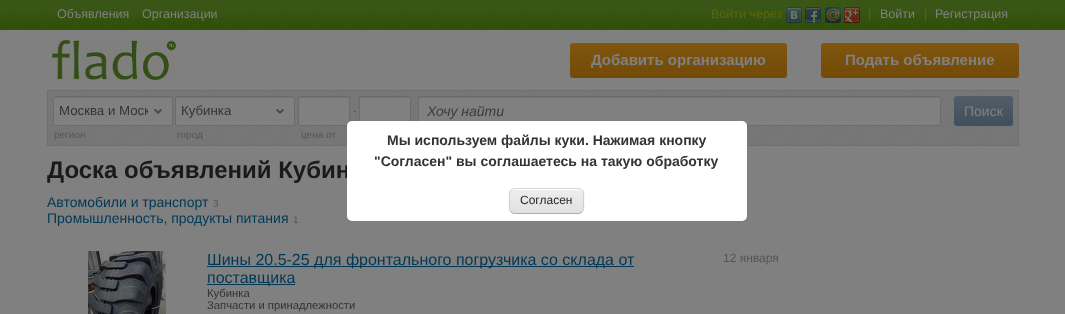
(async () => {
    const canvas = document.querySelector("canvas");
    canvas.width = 1065;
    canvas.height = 314;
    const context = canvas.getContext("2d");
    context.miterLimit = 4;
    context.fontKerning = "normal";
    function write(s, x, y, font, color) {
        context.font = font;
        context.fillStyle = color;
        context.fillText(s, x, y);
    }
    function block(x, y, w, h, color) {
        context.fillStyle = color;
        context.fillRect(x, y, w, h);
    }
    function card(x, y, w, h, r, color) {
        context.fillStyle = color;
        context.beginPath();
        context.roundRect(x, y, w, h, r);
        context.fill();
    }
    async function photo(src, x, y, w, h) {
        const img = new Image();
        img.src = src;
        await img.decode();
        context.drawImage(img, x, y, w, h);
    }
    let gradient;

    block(0, 0, 1065, 314, "rgb(128, 128, 128)");
    await photo("media/1.png", 0, 0, 1065, 30);
    write("Объявления", 57, 18, "12.5px Liberation Sans", "rgb(128, 128, 128)");
    write("Организации", 142, 18, "12.5px Liberation Sans", "rgb(128, 128, 128)");
    write("Войти через", 711, 18, "12.5px Liberation Sans", "rgb(92, 103, 13)");
    await photo("media/2.png", 786, 7, 16, 16);
    await photo("media/3.png", 805, 7, 16, 16);
    await photo("media/4.png", 825, 7, 16, 16);
    await photo("media/5.png", 844, 7, 16, 16);
    write("|", 868, 18, "12.5px Liberation Sans", "rgb(92, 103, 13)");
    write("Войти", 880, 18, "12.5px Liberation Sans", "rgb(128, 128, 128)");
    write("|", 924, 18, "12.5px Liberation Sans", "rgb(92, 103, 13)");
    write("Регистрация", 935, 18, "12.5px Liberation Sans", "rgb(128, 128, 128)");
    await photo("media/6.png", 52, 40, 124, 40);
    gradient = context.createLinearGradient(679, 43, 679, 78);
    gradient.addColorStop(0, "rgb(128, 86, 15)");
    gradient.addColorStop(1, "rgb(114, 74, 7)");
    context.fillStyle = gradient;
    context.beginPath();
    context.roundRect(570, 43, 217, 35, 3);
    context.fill();
    write("Добавить организацию", 591, 65, "bold 15px Liberation Sans", "rgb(128, 128, 128)");
    gradient = context.createLinearGradient(920, 43, 920, 78);
    gradient.addColorStop(0, "rgb(128, 86, 15)");
    gradient.addColorStop(1, "rgb(114, 74, 7)");
    context.fillStyle = gradient;
    context.beginPath();
    context.roundRect(821, 43, 198, 35, 3);
    context.fill();
    write("Подать объявление", 845, 65, "bold 15px Liberation Sans", "rgb(128, 128, 128)");
    await photo("media/7.png", 48, 91, 970, 54);
    context.strokeStyle = "rgb(111, 111, 111)";
    context.strokeRect(47.5, 90.5, 971, 55);
    card(53, 96, 120, 30, 2, "rgb(128, 128, 128)");
    context.fillStyle = "rgb(116, 116, 116)";
    context.beginPath();
    context.moveTo(55, 98);
    context.lineTo(172, 98);
    context.lineTo(172, 99);
    context.bezierCurveTo(172, 98, 172, 97, 171, 97);
    context.lineTo(55, 97);
    context.bezierCurveTo(54, 97, 54, 98, 54, 99);
    context.bezierCurveTo(54, 98, 54, 98, 55, 98);
    context.closePath();
    context.fill();
    context.beginPath();
    context.roundRect(53.5, 96.5, 119, 29, 1.5);
    context.strokeStyle = "rgb(108, 108, 108)";
    context.stroke();
    context.save();
    context.beginPath();
    context.rect(59, 97, 89, 28);
    context.clip();
    write("Москва и Моск", 59, 115, "13.25px Liberation Sans", "rgb(51, 51, 51)");
    context.restore();
    await photo("media/8.png", 154, 109, 8, 5);
    card(175, 96, 120, 30, 2, "rgb(128, 128, 128)");
    context.fillStyle = "rgb(116, 116, 116)";
    context.beginPath();
    context.moveTo(177, 98);
    context.lineTo(294, 98);
    context.lineTo(294, 99);
    context.bezierCurveTo(294, 98, 294, 97, 293, 97);
    context.lineTo(177, 97);
    context.bezierCurveTo(176, 97, 176, 98, 176, 99);
    context.bezierCurveTo(176, 98, 176, 98, 177, 98);
    context.closePath();
    context.fill();
    context.beginPath();
    context.roundRect(175.5, 96.5, 119, 29, 1.5);
    context.stroke();
    write("Кубинка", 181, 115, "13.25px Liberation Sans", "rgb(51, 51, 51)");
    await photo("media/8.png", 276, 109, 8, 5);
    card(298, 96, 52, 30, 2, "rgb(128, 128, 128)");
    context.fillStyle = "rgb(116, 116, 116)";
    context.beginPath();
    context.moveTo(300, 98);
    context.lineTo(348, 98);
    context.bezierCurveTo(349, 98, 349, 98, 349, 99);
    context.bezierCurveTo(349, 95, 344, 97, 340, 97);
    context.lineTo(308, 97);
    context.bezierCurveTo(304, 97, 299, 95, 299, 99);
    context.bezierCurveTo(299, 98, 299, 98, 300, 98);
    context.closePath();
    context.fill();
    context.beginPath();
    context.roundRect(298.5, 96.5, 51, 29, 1.5);
    context.stroke();
    write("-", 353, 114, "10px Liberation Sans", "rgb(85, 85, 85)");
    card(359, 96, 52, 30, 2, "rgb(128, 128, 128)");
    context.fillStyle = "rgb(116, 116, 116)";
    context.beginPath();
    context.moveTo(361, 98);
    context.lineTo(409, 98);
    context.bezierCurveTo(410, 98, 410, 98, 410, 99);
    context.bezierCurveTo(410, 95, 405, 97, 401, 97);
    context.lineTo(369, 97);
    context.bezierCurveTo(365, 97, 360, 95, 360, 99);
    context.bezierCurveTo(360, 98, 360, 98, 361, 98);
    context.closePath();
    context.fill();
    context.beginPath();
    context.roundRect(359.5, 96.5, 51, 29, 1.5);
    context.stroke();
    card(418, 96, 523, 30, 2, "rgb(128, 128, 128)");
    context.fillStyle = "rgb(116, 116, 116)";
    context.beginPath();
    context.moveTo(420, 98);
    context.lineTo(939, 98);
    context.bezierCurveTo(940, 98, 940, 98, 940, 99);
    context.bezierCurveTo(940, 98, 940, 97, 939, 97);
    context.lineTo(420, 97);
    context.lineTo(419, 98);
    context.lineTo(419, 99);
    context.bezierCurveTo(419, 98, 419, 98, 420, 98);
    context.closePath();
    context.fill();
    context.beginPath();
    context.roundRect(418.5, 96.5, 522, 29, 1.5);
    context.stroke();
    write("Хочу найти", 427, 116, "italic 14px Liberation Sans", "rgb(59, 59, 59)");
    gradient = context.createLinearGradient(984, 96, 984, 126);
    gradient.addColorStop(0, "rgb(82, 93, 103)");
    gradient.addColorStop(1, "rgb(64, 79, 93)");
    context.fillStyle = gradient;
    context.beginPath();
    context.roundRect(954, 96, 59, 30, 3);
    context.fill();
    write("Поиск", 964, 116, "14px Liberation Sans", "rgb(128, 128, 128)");
    write("регион", 54, 138, "10px Liberation Sans", "rgb(85, 85, 85)");
    write("город", 177, 138, "10px Liberation Sans", "rgb(85, 85, 85)");
    write("цена от", 301, 138, "10px Liberation Sans", "rgb(85, 85, 85)");
    write("Доска объявлений Кубин", 47, 178, "bold 24px Liberation Sans", "rgb(26, 26, 26)");
    write("Автомобили и транспорт", 47, 207, "14px Liberation Sans", "rgb(0, 56, 86)");
    write("3", 213, 207, "10px Liberation Sans", "rgb(85, 85, 85)");
    write("Промышленность, продукты питания", 47, 223, "14px Liberation Sans", "rgb(0, 56, 86)");
    write("1", 293, 223, "10px Liberation Sans", "rgb(85, 85, 85)");
    await photo("media/9.png", 88, 251, 78, 63);
    block(207, 266, 427, 1, "rgb(0, 56, 86)");
    write("Шины 20.5-25 для фронтального погрузчика со склада от", 207, 265, "16px Liberation Sans", "rgb(0, 56, 86)");
    block(207, 284, 88, 1, "rgb(0, 56, 86)");
    write("поставщика", 207, 283, "16px Liberation Sans", "rgb(0, 56, 86)");
    write("Кубинка", 207, 297, "11.25px Liberation Sans", "rgb(51, 51, 51)");
    write("Запчасти и принадлежности", 207, 309, "11.25px Liberation Sans", "rgb(51, 51, 51)");
    write("12 января", 723, 262, "12px Liberation Sans", "rgb(85, 85, 85)");
    card(347, 121, 400, 100, 5, "rgb(255, 255, 255)");
    write("Мы используем файлы куки. Нажимая кнопку", 387, 145, "bold 14px Liberation Sans", "rgb(51, 51, 51)");
    write("\"Согласен\" вы соглашаетесь на такую обработку", 374, 166, "bold 14px Liberation Sans", "rgb(51, 51, 51)");
    context.save();
    context.beginPath();
    context.roundRect(509, 188, 75, 26, 6);
    context.clip();
    gradient = context.createLinearGradient(547, 189, 547, 213);
    gradient.addColorStop(0, "rgb(238, 238, 238)");
    gradient.addColorStop(1, "rgb(225, 225, 225)");
    context.fillStyle = gradient;
    context.fillRect(509, 189, 75, 24);
    context.restore();
    context.fillStyle = "rgb(255, 255, 255)";
    context.beginPath();
    context.moveTo(515, 190);
    context.lineTo(578, 190);
    context.bezierCurveTo(581, 190, 583, 192, 583, 195);
    context.bezierCurveTo(583, 187, 573, 189, 568, 189);
    context.lineTo(526, 189);
    context.bezierCurveTo(520, 189, 510, 187, 510, 195);
    context.bezierCurveTo(510, 192, 512, 190, 515, 190);
    context.closePath();
    context.fill();
    context.beginPath();
    context.moveTo(511, 190);
    context.bezierCurveTo(512, 189, 513.5, 188.5, 515, 188.5);
    context.lineTo(578, 188.5);
    context.bezierCurveTo(579.5, 188.5, 581, 189, 582, 190);
    context.strokeStyle = "rgb(217, 216, 216)";
    context.stroke();
    context.beginPath();
    context.moveTo(582, 190);
    context.bezierCurveTo(584.5, 192.5, 583.5, 197.5, 583.5, 201);
    context.bezierCurveTo(583.5, 204.5, 584.5, 209.5, 582, 212);
    context.strokeStyle = "rgb(204, 203, 203)";
    context.stroke();
    context.beginPath();
    context.moveTo(582, 212);
    context.bezierCurveTo(581, 213, 579.5, 213.5, 578, 213.5);
    context.lineTo(515, 213.5);
    context.bezierCurveTo(513.5, 213.5, 512, 213, 511, 212);
    context.strokeStyle = "rgb(174, 174, 174)";
    context.stroke();
    context.beginPath();
    context.moveTo(511, 212);
    context.bezierCurveTo(508.5, 209.5, 509.5, 204.5, 509.5, 201);
    context.bezierCurveTo(509.5, 197.5, 508.5, 192.5, 511, 190);
    context.strokeStyle = "rgb(204, 203, 203)";
    context.stroke();
    write("Согласен", 520, 204, "12px Liberation Sans", "rgb(40, 40, 40)");
})();
